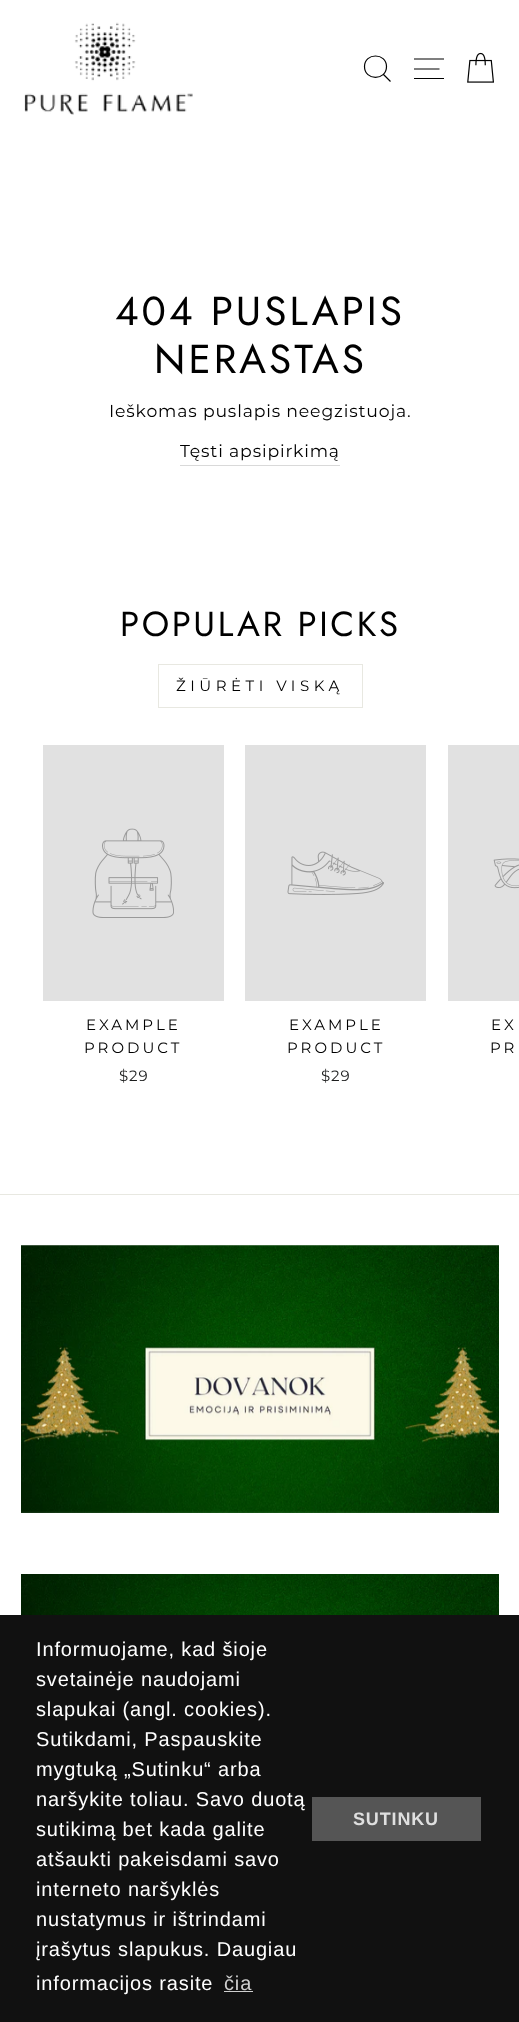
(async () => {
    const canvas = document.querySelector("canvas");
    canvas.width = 519;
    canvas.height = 2022;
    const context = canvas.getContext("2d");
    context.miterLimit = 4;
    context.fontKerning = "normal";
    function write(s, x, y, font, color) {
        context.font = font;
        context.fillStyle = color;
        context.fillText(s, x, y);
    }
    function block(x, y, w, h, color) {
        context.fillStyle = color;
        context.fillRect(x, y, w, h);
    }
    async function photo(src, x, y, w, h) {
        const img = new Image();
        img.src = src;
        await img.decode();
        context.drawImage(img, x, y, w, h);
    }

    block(0, 0, 519, 2022, "rgb(255, 255, 255)");
    context.fillStyle = "rgba(0, 0, 0, 0.2)";
    context.filter = "blur(0.5px)";
    context.beginPath();
    context.rect(0, 0, 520, 138);
    context.fill();
    context.filter = "none";
    block(0, 0, 519, 138, "rgb(255, 255, 255)");
    await photo("media/1.png", 24, 22, 169, 93);
    context.beginPath();
    context.moveTo(386.5, 66.5);
    context.bezierCurveTo(386.5, 81, 364.5, 81, 364.5, 66.5);
    context.bezierCurveTo(364.5, 52.5, 386.5, 52.5, 386.5, 66.5);
    context.closePath();
    context.moveTo(390.5, 81.5);
    context.lineTo(383.5, 74.5);
    context.strokeStyle = "rgb(0, 0, 0)";
    context.lineWidth = 1.2;
    context.stroke();
    context.beginPath();
    context.moveTo(414, 59);
    context.lineTo(444, 59);
    context.moveTo(414, 69);
    context.lineTo(439.5, 69);
    context.moveTo(414, 78.5);
    context.lineTo(444, 78.5);
    context.stroke();
    await photo("media/2.png", 467, 52, 27, 31);
    context.letterSpacing = "3px";
    write("404 PUSLAPIS", 115, 325, "40.5px Jost", "rgb(0, 0, 0)");
    write("NERASTAS", 154, 373, "40.5px Jost", "rgb(0, 0, 0)");
    context.letterSpacing = "0.85px";
    write("Ieškomas puslapis neegzistuoja.", 109, 417, "17.25px Montserrat", "rgb(0, 0, 0)");
    block(180, 465, 160, 1, "rgb(217, 217, 217)");
    write("Tęsti apsipirkimą", 180, 457, "17.25px Montserrat", "rgb(0, 0, 0)");
    context.letterSpacing = "2.6px";
    write("POPULAR PICKS", 120, 636, "34.75px Jost", "rgb(0, 0, 0)");
    context.strokeStyle = "rgb(232, 232, 225)";
    context.lineWidth = 1;
    context.strokeRect(158.5, 664.5, 204, 43);
    context.letterSpacing = "4.5px";
    write("ŽIŪRĖTI VISKĄ", 176, 691, "15px Montserrat", "rgb(0, 0, 0)");
    block(43, 745, 181, 256, "rgb(225, 225, 225)");
    await photo("media/3.png", 92, 828, 82, 90);
    context.letterSpacing = "3px";
    write("EXAMPLE", 86, 1030, "15px Montserrat", "rgb(0, 0, 0)");
    write("PRODUCT", 84, 1053, "15px Montserrat", "rgb(0, 0, 0)");
    context.letterSpacing = "0.85px";
    write("$29", 119, 1081, "15px Montserrat", "rgb(28, 29, 29)");
    block(245, 745, 181, 256, "rgb(225, 225, 225)");
    await photo("media/4.png", 287, 851, 97, 44);
    context.letterSpacing = "3px";
    write("EXAMPLE", 289, 1030, "15px Montserrat", "rgb(0, 0, 0)");
    write("PRODUCT", 287, 1053, "15px Montserrat", "rgb(0, 0, 0)");
    context.letterSpacing = "0.85px";
    write("$29", 321, 1081, "15px Montserrat", "rgb(28, 29, 29)");
    block(448, 745, 71, 256, "rgb(225, 225, 225)");
    await photo("media/5.png", 493, 858, 26, 31);
    context.letterSpacing = "3px";
    write("EX", 491, 1030, "15px Montserrat", "rgb(0, 0, 0)");
    write("PR", 490, 1053, "15px Montserrat", "rgb(0, 0, 0)");
    block(0, 1194, 519, 1, "rgb(232, 232, 225)");
    await photo("media/6.png", 21, 1245, 478, 268);
    await photo("media/7.png", 21, 1574, 478, 41);
    block(0, 1615, 519, 407, "rgb(17, 17, 17)");
    context.letterSpacing = "0.85px";
    write("Informuojame, kad šioje", 36, 1656, "20px Liberation Sans", "rgb(255, 255, 255)");
    write("svetainėje naudojami", 36, 1686, "20px Liberation Sans", "rgb(255, 255, 255)");
    write("slapukai (angl. cookies).", 36, 1716, "20px Liberation Sans", "rgb(255, 255, 255)");
    write("Sutikdami, Paspauskite", 36, 1746, "20px Liberation Sans", "rgb(255, 255, 255)");
    write("mygtuką „Sutinku“ arba", 36, 1776, "20px Liberation Sans", "rgb(255, 255, 255)");
    write("naršykite toliau. Savo duotą", 36, 1806, "20px Liberation Sans", "rgb(255, 255, 255)");
    write("sutikimą bet kada galite", 36, 1836, "20px Liberation Sans", "rgb(255, 255, 255)");
    write("atšaukti pakeisdami savo", 36, 1866, "20px Liberation Sans", "rgb(255, 255, 255)");
    write("interneto naršyklės", 36, 1896, "20px Liberation Sans", "rgb(255, 255, 255)");
    write("nustatymus ir ištrindami", 36, 1926, "20px Liberation Sans", "rgb(255, 255, 255)");
    write("įrašytus slapukus. Daugiau", 36, 1956, "20px Liberation Sans", "rgb(255, 255, 255)");
    write("informacijos rasite", 36, 1990, "20px Liberation Sans", "rgb(255, 255, 255)");
    write("čia", 224, 1990, "20px Liberation Sans", "rgb(207, 207, 207)");
    block(224, 1991, 29, 1, "rgb(207, 207, 207)");
    block(312, 1797, 169, 44, "rgb(85, 85, 85)");
    write("SUTINKU", 353, 1825, "bold 18px Liberation Sans", "rgb(223, 223, 223)");
})();
